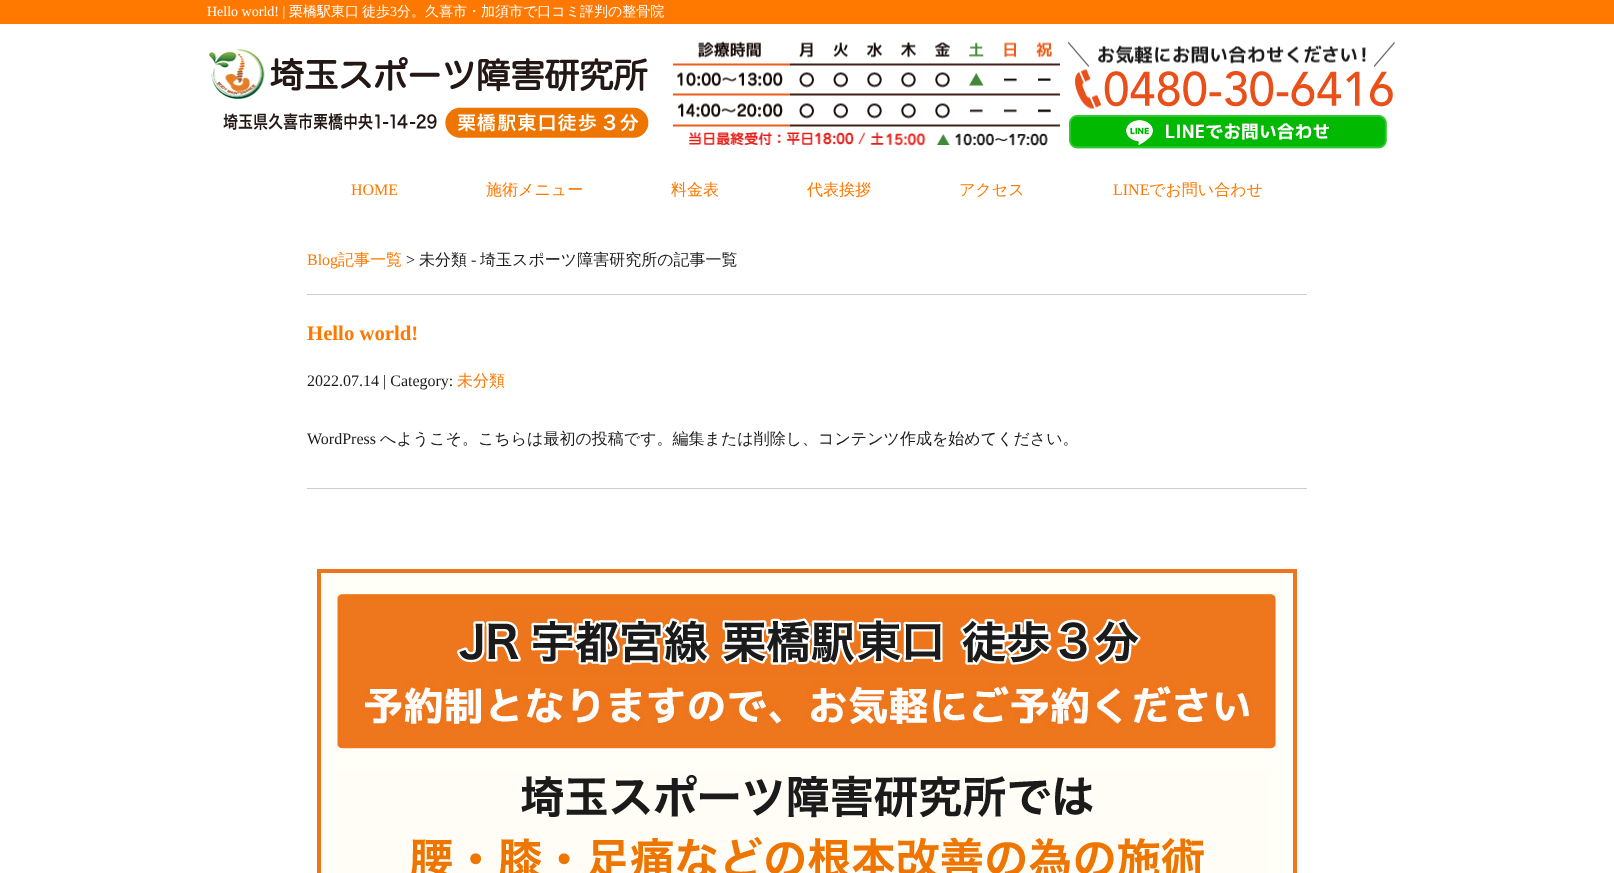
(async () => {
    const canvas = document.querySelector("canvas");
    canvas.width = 1614;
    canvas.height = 873;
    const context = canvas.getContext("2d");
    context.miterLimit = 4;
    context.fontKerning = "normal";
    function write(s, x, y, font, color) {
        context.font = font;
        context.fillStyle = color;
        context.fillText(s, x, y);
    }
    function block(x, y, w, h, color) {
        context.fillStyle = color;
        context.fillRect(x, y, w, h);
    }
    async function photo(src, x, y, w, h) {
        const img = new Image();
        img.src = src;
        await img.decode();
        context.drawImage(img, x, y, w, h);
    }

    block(0, 0, 1614, 873, "rgb(255, 255, 255)");
    block(0, 0, 1614, 24, "rgb(255, 120, 0)");
    write("Hello world! |", 207, 16, "14px Liberation Serif", "rgb(255, 255, 255)");
    write("栗橋駅東口", 289, 16, "500 14px WenQuanYi Zen Hei", "rgb(255, 255, 255)");
    write("徒歩", 362, 16, "500 14px WenQuanYi Zen Hei", "rgb(255, 255, 255)");
    write("3", 390, 16, "14px Liberation Serif", "rgb(255, 255, 255)");
    write("分。久喜市・加須市で口コミ評判の整骨院", 397, 16, "500 14px WenQuanYi Zen Hei", "rgb(255, 255, 255)");
    await photo("media/1.png", 209, 49, 440, 89);
    await photo("media/2.png", 673, 41, 722, 105);
    await photo("media/3.png", 1069, 115, 318, 34);
    write("HOME", 351, 195, "16px Liberation Serif", "rgb(255, 120, 0)");
    write("施術メニュー", 486, 195, "500 16px WenQuanYi Zen Hei", "rgb(255, 120, 0)");
    write("料金表", 671, 195, "500 16px WenQuanYi Zen Hei", "rgb(255, 120, 0)");
    write("代表挨拶", 807, 195, "500 16px WenQuanYi Zen Hei", "rgb(255, 120, 0)");
    write("アクセス", 959, 195, "500 16px WenQuanYi Zen Hei", "rgb(255, 120, 0)");
    write("LINE", 1113, 195, "16px Liberation Serif", "rgb(255, 120, 0)");
    write("でお問い合わせ", 1149, 195, "500 16px WenQuanYi Zen Hei", "rgb(255, 120, 0)");
    block(307, 294, 1000, 1, "rgb(204, 204, 204)");
    write("Blog", 307, 265, "16px Liberation Serif", "rgb(255, 120, 0)");
    write("記事一覧", 338, 265, "500 16px WenQuanYi Zen Hei", "rgb(255, 120, 0)");
    write(">", 406, 265, "16px Liberation Serif", "rgb(27, 27, 27)");
    write("未分類", 419, 265, "500 16px WenQuanYi Zen Hei", "rgb(27, 27, 27)");
    write("-", 471, 265, "16px Liberation Serif", "rgb(27, 27, 27)");
    write("埼玉スポーツ障害研究所の記事一覧", 480, 265, "500 16px WenQuanYi Zen Hei", "rgb(27, 27, 27)");
    write("Hello world!", 307, 340, "bold 20.75px Liberation Serif", "rgb(255, 120, 0)");
    write("2022.07.14 | Category:", 307, 386, "16px Liberation Serif", "rgb(27, 27, 27)");
    write("未分類", 457, 386, "500 16px WenQuanYi Zen Hei", "rgb(255, 120, 0)");
    block(307, 488, 1000, 1, "rgb(204, 204, 204)");
    write("WordPress", 307, 444, "16px Liberation Serif", "rgb(27, 27, 27)");
    write("へようこそ。こちらは最初の投稿です。編集または削除し、コンテンツ作成を始めてください。", 380, 444, "500 16px WenQuanYi Zen Hei", "rgb(27, 27, 27)");
    await photo("media/4.png", 317, 569, 980, 304);
})();
